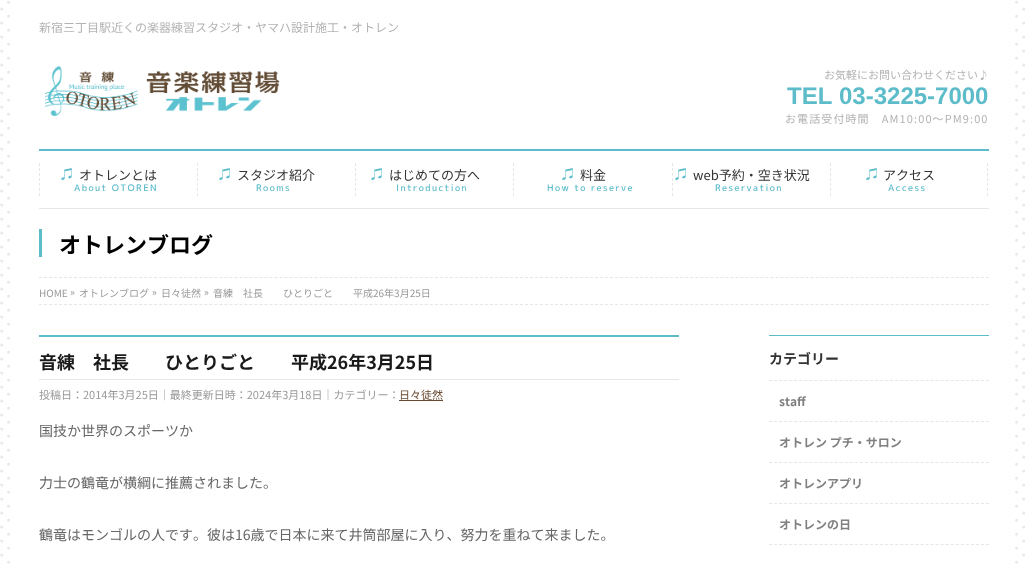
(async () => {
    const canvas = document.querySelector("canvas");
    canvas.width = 1027;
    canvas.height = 564;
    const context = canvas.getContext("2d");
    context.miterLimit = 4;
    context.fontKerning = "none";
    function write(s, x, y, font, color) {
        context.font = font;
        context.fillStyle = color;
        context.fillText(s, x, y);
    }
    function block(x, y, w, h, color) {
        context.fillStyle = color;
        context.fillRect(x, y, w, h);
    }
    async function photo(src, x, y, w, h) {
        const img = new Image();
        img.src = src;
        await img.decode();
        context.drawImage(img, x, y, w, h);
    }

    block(0, 0, 1027, 564, "rgb(255, 255, 255)");
    await photo("media/1.png", 0, 1, 1025, 563);
    block(14, 1, 997, 206, "rgb(255, 255, 255)");
    write("新宿三丁目駅近くの楽器練習スタジオ・ヤマハ設計施工・オトレン", 39, 32, "12px Noto Sans JP", "rgb(179, 179, 179)");
    await photo("media/2.png", 44, 66, 236, 50);
    write("お気軽にお問い合わせください♪", 824, 79, "11px Noto Sans JP", "rgb(179, 179, 179)");
    write("TEL 03-3225-7000", 787, 104, "bold 24px Liberation Sans", "rgb(93, 188, 202)");
    context.letterSpacing = "1.1px";
    write("お電話受付時間　AM10:00〜PM9:00", 785, 123, "11px Noto Sans JP", "rgb(179, 179, 179)");
    block(39, 149, 950, 2, "rgb(93, 188, 202)");
    block(39, 208, 950, 1, "rgb(230, 230, 230)");
    context.beginPath();
    context.moveTo(39.5, 163);
    context.lineTo(39.5, 196);
    context.strokeStyle = "rgb(230, 230, 230)";
    context.setLineDash([3, 2]);
    context.stroke();
    await photo("media/3.png", 61, 168, 11, 12);
    context.letterSpacing = "0px";
    write("オトレンとは", 79, 180, "13px Noto Sans JP", "rgb(51, 51, 51)");
    context.letterSpacing = "1.4px";
    write("About OTOREN", 74, 191, "500 9px 'M PLUS 1p'", "rgb(93, 188, 202)");
    context.beginPath();
    context.moveTo(197.5, 163);
    context.lineTo(197.5, 196);
    context.stroke();
    await photo("media/3.png", 219, 168, 11, 12);
    context.letterSpacing = "0px";
    write("スタジオ紹介", 237, 180, "13px Noto Sans JP", "rgb(51, 51, 51)");
    context.letterSpacing = "1.4px";
    write("Rooms", 256, 191, "500 9px 'M PLUS 1p'", "rgb(93, 188, 202)");
    context.beginPath();
    context.moveTo(355.5, 163);
    context.lineTo(355.5, 196);
    context.stroke();
    await photo("media/3.png", 371, 168, 11, 12);
    context.letterSpacing = "0px";
    write("はじめての方へ", 389, 180, "13px Noto Sans JP", "rgb(51, 51, 51)");
    context.letterSpacing = "1.4px";
    write("Introduction", 396, 191, "500 9px 'M PLUS 1p'", "rgb(93, 188, 202)");
    context.beginPath();
    context.moveTo(513.5, 163);
    context.lineTo(513.5, 196);
    context.stroke();
    await photo("media/3.png", 562, 168, 11, 12);
    context.letterSpacing = "0px";
    write("料金", 580, 180, "13px Noto Sans JP", "rgb(51, 51, 51)");
    context.letterSpacing = "1.4px";
    write("How to reserve", 547, 191, "500 9px 'M PLUS 1p'", "rgb(93, 188, 202)");
    context.beginPath();
    context.moveTo(672.5, 163);
    context.lineTo(672.5, 196);
    context.stroke();
    await photo("media/3.png", 675, 168, 11, 12);
    context.letterSpacing = "0px";
    write("web予約・空き状況", 693, 180, "13px Noto Sans JP", "rgb(51, 51, 51)");
    context.letterSpacing = "1.4px";
    write("Reservation", 715, 191, "500 9px 'M PLUS 1p'", "rgb(93, 188, 202)");
    context.beginPath();
    context.moveTo(830.5, 163);
    context.lineTo(830.5, 196);
    context.stroke();
    await photo("media/3.png", 866, 168, 11, 12);
    context.letterSpacing = "0px";
    write("アクセス", 883, 180, "13px Noto Sans JP", "rgb(51, 51, 51)");
    context.letterSpacing = "1.4px";
    write("Access", 888, 191, "500 9px 'M PLUS 1p'", "rgb(93, 188, 202)");
    context.beginPath();
    context.moveTo(987.5, 163);
    context.lineTo(987.5, 196);
    context.stroke();
    block(14, 210, 997, 354, "rgb(255, 255, 255)");
    block(39, 229, 3, 28, "rgb(93, 188, 202)");
    context.letterSpacing = "0px";
    write("オトレンブログ", 59, 253, "bold 22px Noto Sans JP", "rgb(0, 0, 0)");
    context.beginPath();
    context.moveTo(39, 277.5);
    context.lineTo(989, 277.5);
    context.setLineDash([3, 2.01]);
    context.stroke();
    context.beginPath();
    context.moveTo(39, 304.5);
    context.lineTo(989, 304.5);
    context.stroke();
    write("HOME", 39, 297, "10px Noto Sans JP", "rgb(153, 153, 153)");
    write("»", 70, 296, "10px Noto Sans JP", "rgb(153, 153, 153)");
    write("オトレンブログ", 79, 297, "10px Noto Sans JP", "rgb(153, 153, 153)");
    write("»", 152, 296, "10px Noto Sans JP", "rgb(153, 153, 153)");
    write("日々徒然", 161, 297, "10px Noto Sans JP", "rgb(153, 153, 153)");
    write("»", 204, 296, "10px Noto Sans JP", "rgb(153, 153, 153)");
    write("音練　社長　　ひとりごと　　平成26年3月25日", 213, 297, "10px Noto Sans JP", "rgb(153, 153, 153)");
    block(39, 335, 640, 2, "rgb(93, 188, 202)");
    block(39, 379, 640, 1, "rgb(230, 230, 230)");
    write("音練　社長　　ひとりごと　　平成26年3月25日", 39, 369, "bold 18px Noto Sans JP", "rgb(26, 26, 26)");
    write("投稿日：2014年3月25日｜最終更新日時：2024年3月18日｜カテゴリー：", 39, 399, "11px Noto Sans JP", "rgb(153, 153, 153)");
    write("日々徒然", 399, 399, "11px Noto Sans JP", "rgb(105, 74, 49)");
    block(399, 400, 44, 1, "rgb(105, 74, 49)");
    write("国技か世界のスポーツか", 39, 436, "14px Noto Sans JP", "rgb(102, 102, 102)");
    write("力士の鶴竜が横綱に推薦されました。", 39, 488, "14px Noto Sans JP", "rgb(102, 102, 102)");
    write("鶴竜はモンゴルの人です。彼は16歳で日本に来て井筒部屋に入り、努力を重ねて来ました。", 39, 540, "14px Noto Sans JP", "rgb(102, 102, 102)");
    block(769, 335, 220, 1, "rgb(93, 188, 202)");
    write("カテゴリー", 769, 364, "bold 14px Noto Sans JP", "rgb(51, 51, 51)");
    context.beginPath();
    context.moveTo(769, 380.5);
    context.lineTo(989, 380.5);
    context.setLineDash([3, 2.05]);
    context.stroke();
    write("staff", 779, 406, "bold 12px Noto Sans JP", "rgb(128, 128, 128)");
    context.beginPath();
    context.moveTo(769, 421.5);
    context.lineTo(989, 421.5);
    context.stroke();
    write("オトレン プチ・サロン", 779, 447, "bold 12px Noto Sans JP", "rgb(128, 128, 128)");
    context.beginPath();
    context.moveTo(769, 462.5);
    context.lineTo(989, 462.5);
    context.stroke();
    write("オトレンアプリ", 779, 488, "bold 12px Noto Sans JP", "rgb(128, 128, 128)");
    context.beginPath();
    context.moveTo(769, 503.5);
    context.lineTo(989, 503.5);
    context.stroke();
    write("オトレンの日", 779, 529, "bold 12px Noto Sans JP", "rgb(128, 128, 128)");
    context.beginPath();
    context.moveTo(769, 544.5);
    context.lineTo(989, 544.5);
    context.stroke();
})();
